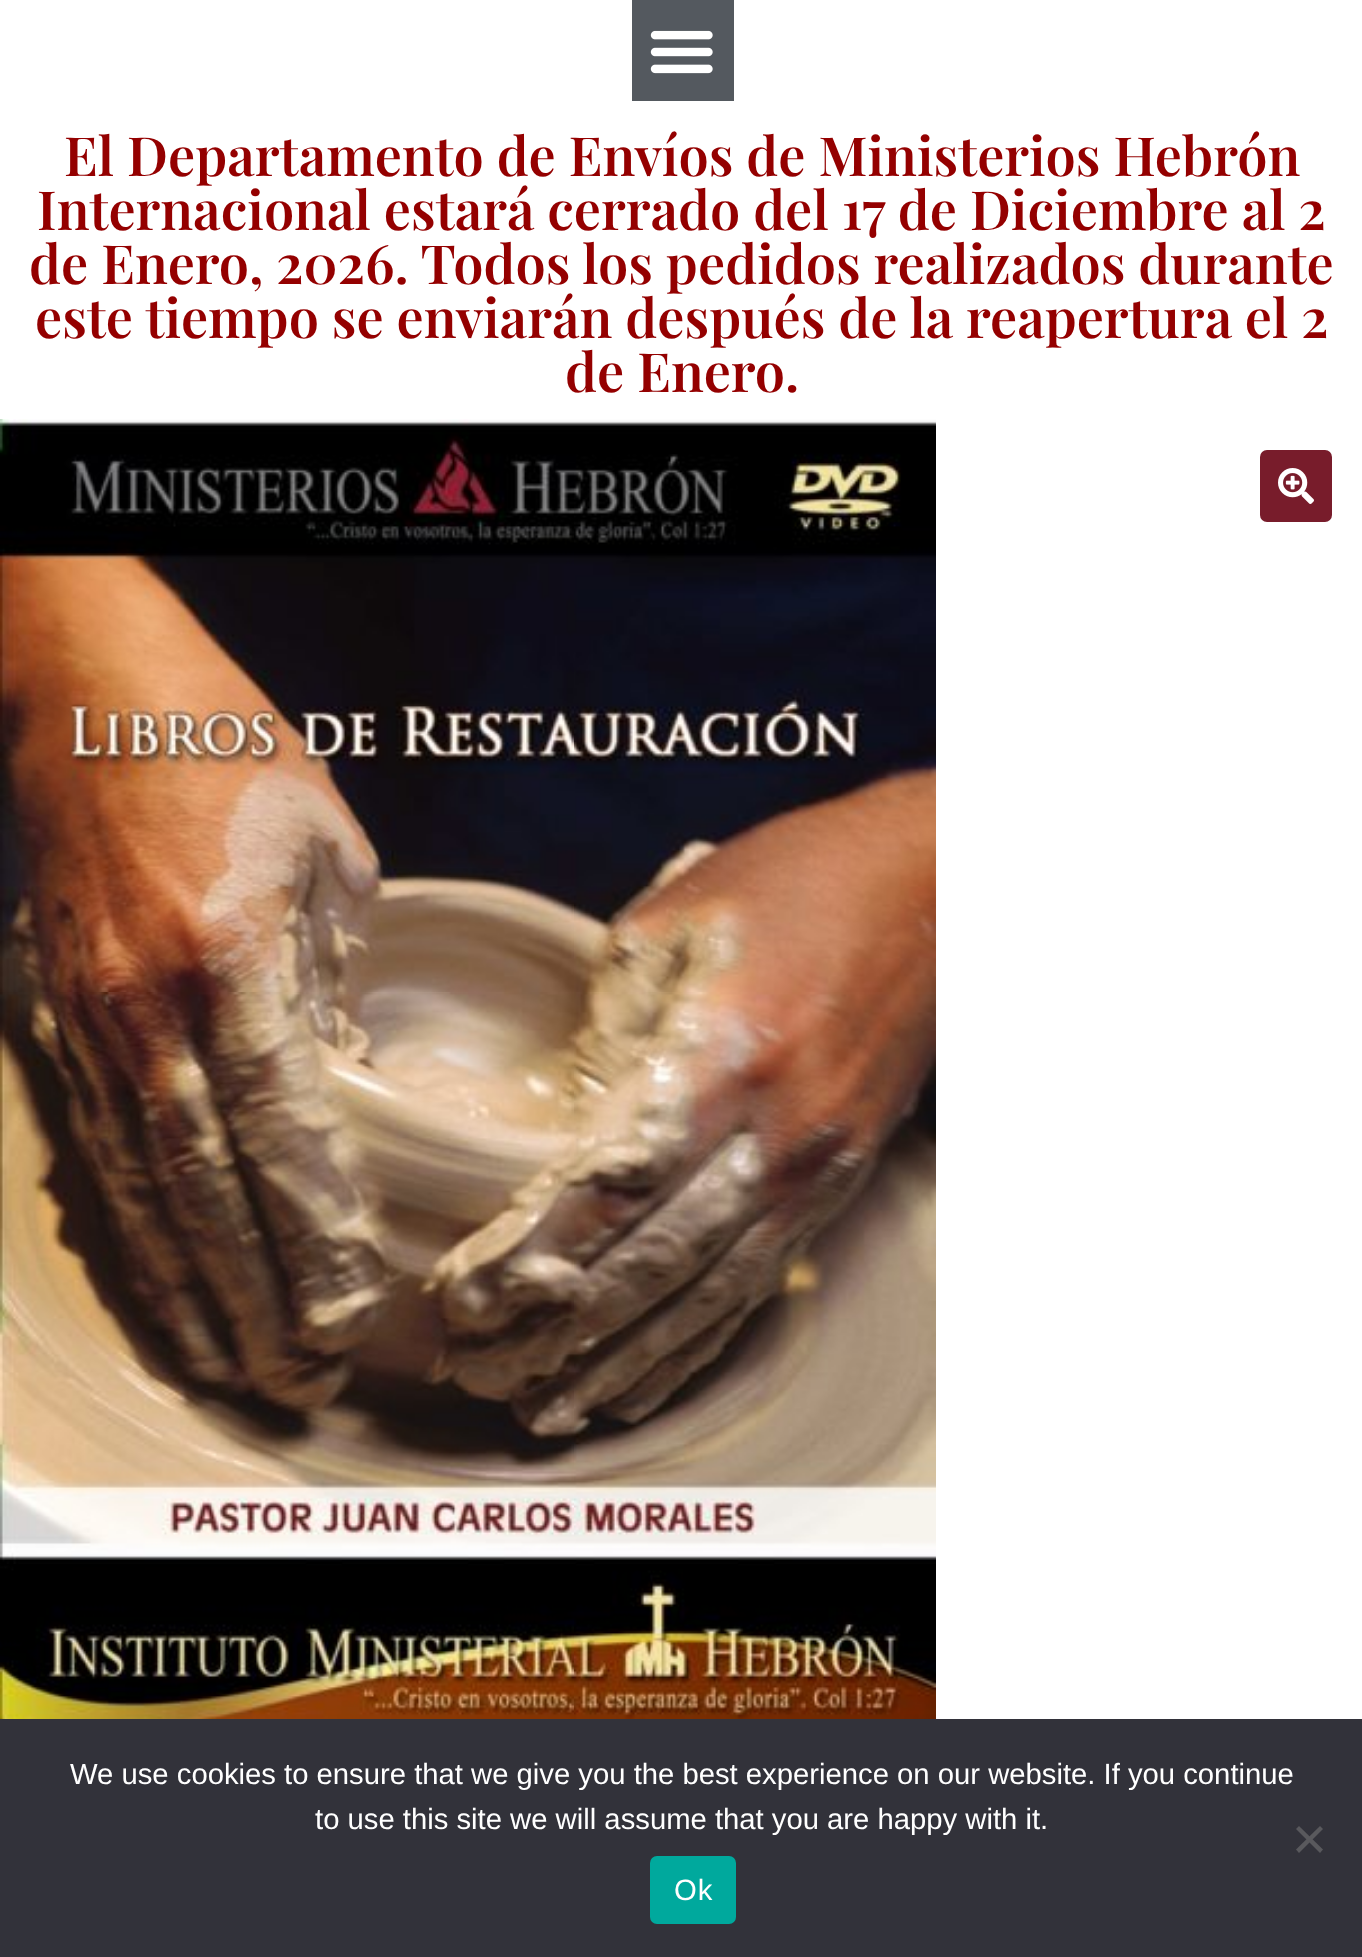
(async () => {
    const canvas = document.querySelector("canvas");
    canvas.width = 1362;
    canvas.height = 1957;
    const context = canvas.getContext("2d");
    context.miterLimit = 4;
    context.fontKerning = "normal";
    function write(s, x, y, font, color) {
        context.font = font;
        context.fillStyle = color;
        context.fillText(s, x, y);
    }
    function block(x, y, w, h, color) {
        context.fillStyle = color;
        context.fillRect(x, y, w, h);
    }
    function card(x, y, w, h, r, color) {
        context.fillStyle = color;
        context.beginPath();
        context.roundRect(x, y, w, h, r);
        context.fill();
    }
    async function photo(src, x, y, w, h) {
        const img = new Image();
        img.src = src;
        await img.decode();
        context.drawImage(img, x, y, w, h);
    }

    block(0, 0, 1362, 1957, "rgb(255, 255, 255)");
    block(632, 0, 102, 101, "rgb(84, 89, 95)");
    await photo("media/1.png", 650, 30, 63, 44);
    write("El Departamento de Envíos de Ministerios Hebrón", 64, 176, "600 54px Playfair Display", "rgb(148, 0, 0)");
    write("Internacional estará cerrado del 17 de Diciembre al 2", 37, 230, "600 54px Playfair Display", "rgb(148, 0, 0)");
    write("de Enero, 2026. Todos los pedidos realizados durante", 29, 284, "600 54px Playfair Display", "rgb(148, 0, 0)");
    write("este tiempo se enviarán después de la reapertura el 2", 35, 338, "600 54px Playfair Display", "rgb(148, 0, 0)");
    write("de Enero.", 565, 392, "600 54px Playfair Display", "rgb(148, 0, 0)");
    await photo("media/2.png", 0, 419, 936, 1300);
    card(1260, 450, 72, 72, 7, "rgb(120, 28, 43)");
    await photo("media/3.png", 1278, 468, 36, 36);
    block(0, 1719, 1362, 238, "rgb(50, 50, 58)");
    write("We use cookies to ensure that we give you the best experience on our website. If you continue", 70, 1784, "29.25px Liberation Sans", "rgb(255, 255, 255)");
    write("to use this site we will assume that you are happy with it.", 315, 1829, "29.25px Liberation Sans", "rgb(255, 255, 255)");
    context.fillStyle = "rgb(89, 89, 93)";
    context.beginPath();
    context.moveTo(1320, 1826);
    context.lineTo(1323, 1829);
    context.lineTo(1299, 1853);
    context.lineTo(1296, 1849.5);
    context.closePath();
    context.fill();
    context.beginPath();
    context.moveTo(1296, 1829);
    context.lineTo(1299, 1826);
    context.lineTo(1323, 1849.5);
    context.lineTo(1320, 1853);
    context.closePath();
    context.fill();
    card(650, 1856, 86, 68, 7, "rgb(0, 169, 157)");
    context.letterSpacing = "1px";
    write("Ok", 674, 1900, "29.25px Liberation Sans", "rgb(255, 255, 255)");
})();
